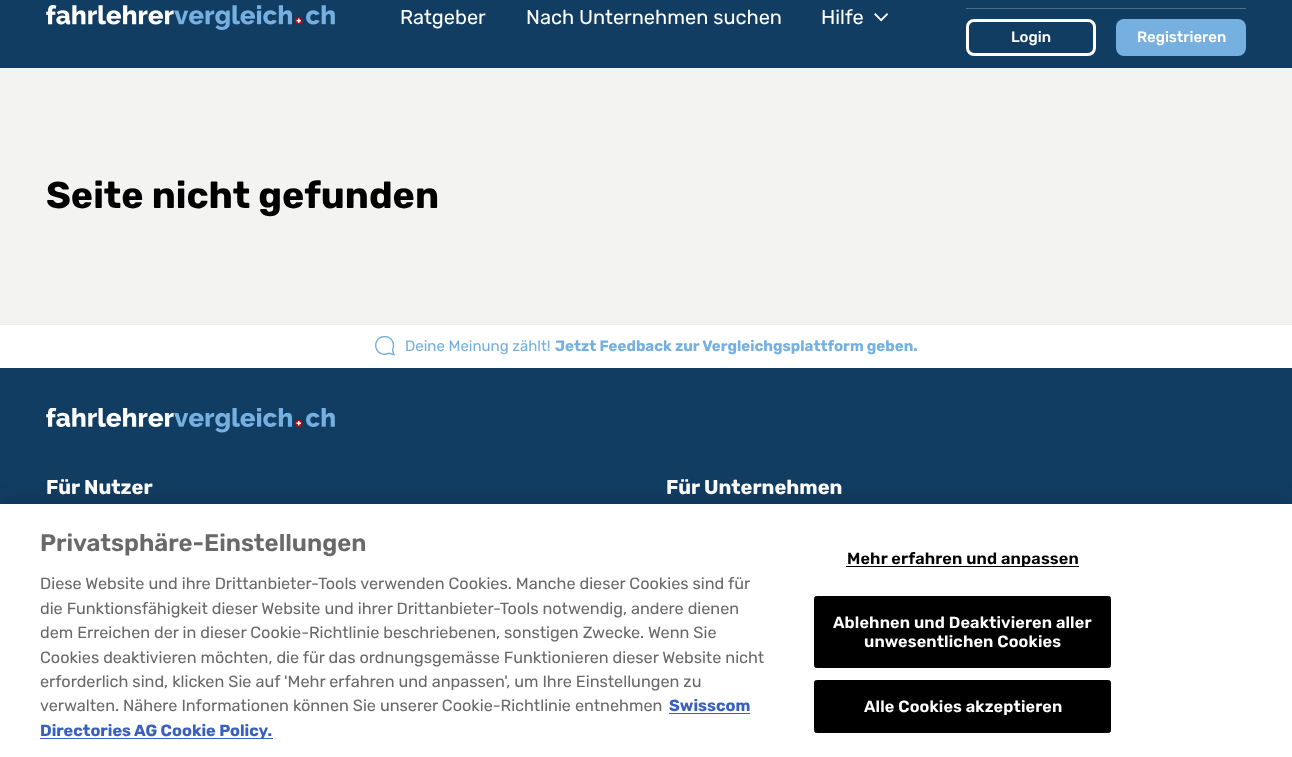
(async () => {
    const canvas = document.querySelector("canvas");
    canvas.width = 1292;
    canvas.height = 757;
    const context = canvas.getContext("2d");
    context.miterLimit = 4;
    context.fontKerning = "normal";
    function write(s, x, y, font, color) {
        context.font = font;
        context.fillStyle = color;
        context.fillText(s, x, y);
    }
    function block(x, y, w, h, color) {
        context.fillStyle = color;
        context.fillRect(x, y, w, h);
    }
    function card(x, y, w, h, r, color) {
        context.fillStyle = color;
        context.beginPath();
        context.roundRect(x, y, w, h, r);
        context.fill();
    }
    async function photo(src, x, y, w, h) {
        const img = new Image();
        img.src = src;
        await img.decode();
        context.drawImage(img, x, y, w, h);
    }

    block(0, 0, 1292, 757, "rgb(243, 243, 241)");
    block(0, 0, 1292, 68, "rgb(18, 61, 99)");
    await photo("media/1.png", 46, 5, 289, 25);
    write("Ratgeber", 400, 24, "20px Rubik", "rgb(255, 255, 255)");
    write("Nach Unternehmen suchen", 526, 24, "20px Rubik", "rgb(255, 255, 255)");
    write("Hilfe", 821, 24, "20px Rubik", "rgb(255, 255, 255)");
    await photo("media/2.png", 874, 13, 15, 9);
    block(966, 8, 280, 1, "rgb(77, 110, 138)");
    context.beginPath();
    context.roundRect(967.5, 20.5, 127, 34, 6.5);
    context.strokeStyle = "rgb(255, 255, 255)";
    context.lineWidth = 3;
    context.stroke();
    write("Login", 1011, 42, "500 15px Rubik", "rgb(255, 255, 255)");
    card(1116, 19, 130, 37, 8, "rgb(117, 176, 224)");
    write("Registrieren", 1137, 42, "500 15px Rubik", "rgb(255, 255, 255)");
    write("Seite nicht gefunden", 46, 208, "bold 37.5px Rubik", "rgb(0, 0, 0)");
    block(0, 325, 1292, 43, "rgb(255, 255, 255)");
    block(0, 324, 1292, 1, "rgb(236, 236, 236)");
    await photo("media/3.png", 375, 335, 20, 21);
    write("Deine Meinung zählt!", 405, 351, "15px Rubik", "rgb(117, 176, 224)");
    write("Jetzt Feedback zur Vergleichgsplattform geben.", 555, 351, "bold 15px Rubik", "rgb(117, 176, 224)");
    block(0, 368, 1292, 136, "rgb(18, 61, 99)");
    await photo("media/4.png", 46, 408, 289, 25);
    write("Für Nutzer", 46, 494, "bold 20px Rubik", "rgb(255, 255, 255)");
    write("Für Unternehmen", 666, 494, "bold 20px Rubik", "rgb(255, 255, 255)");
    context.fillStyle = "rgba(0, 0, 0, 0.2)";
    context.filter = "blur(11px)";
    context.beginPath();
    context.rect(0, 504, 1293, 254);
    context.fill();
    context.filter = "none";
    block(0, 504, 1292, 253, "rgb(255, 255, 255)");
    write("Privatsphäre-Einstellungen", 40, 551, "600 24px Rubik", "rgb(105, 105, 105)");
    write("Diese Website und ihre Drittanbieter-Tools verwenden Cookies. Manche dieser Cookies sind für", 40, 589, "16.25px Rubik", "rgb(105, 105, 105)");
    write("die Funktionsfähigkeit dieser Website und ihrer Drittanbieter-Tools notwendig, andere dienen", 40, 614, "16.25px Rubik", "rgb(105, 105, 105)");
    write("dem Erreichen der in dieser Cookie-Richtlinie beschriebenen, sonstigen Zwecke. Wenn Sie", 40, 638, "16.25px Rubik", "rgb(105, 105, 105)");
    write("Cookies deaktivieren möchten, die für das ordnungsgemässe Funktionieren dieser Website nicht", 40, 663, "16.25px Rubik", "rgb(105, 105, 105)");
    write("erforderlich sind, klicken Sie auf 'Mehr erfahren und anpassen', um Ihre Einstellungen zu", 40, 687, "16.25px Rubik", "rgb(105, 105, 105)");
    write("verwalten. Nähere Informationen können Sie unserer Cookie-Richtlinie entnehmen", 40, 711, "16.25px Rubik", "rgb(105, 105, 105)");
    write("Swisscom", 669, 711, "bold 16.25px Rubik", "rgb(56, 96, 190)");
    block(669, 713, 81, 1, "rgb(56, 96, 190)");
    block(40, 738, 233, 1, "rgb(56, 96, 190)");
    write("Directories AG Cookie Policy.", 40, 736, "bold 16.25px Rubik", "rgb(56, 96, 190)");
    block(846, 566, 233, 1, "rgb(0, 0, 0)");
    context.letterSpacing = "0.15px";
    write("Mehr erfahren und anpassen", 847, 564, "600 16.25px Rubik", "rgb(0, 0, 0)");
    context.beginPath();
    context.roundRect(814.5, 596.5, 296, 71, 2);
    context.fill();
    context.strokeStyle = "rgb(0, 0, 0)";
    context.lineWidth = 1;
    context.stroke();
    write("Ablehnen und Deaktivieren aller", 833, 628, "600 16.25px Rubik", "rgb(255, 255, 255)");
    write("unwesentlichen Cookies", 864, 647, "600 16.25px Rubik", "rgb(255, 255, 255)");
    context.fillStyle = "rgb(0, 0, 0)";
    context.beginPath();
    context.roundRect(814.5, 680.5, 296, 52, 2);
    context.fill();
    context.stroke();
    write("Alle Cookies akzeptieren", 864, 712, "600 16.25px Rubik", "rgb(255, 255, 255)");
})();
